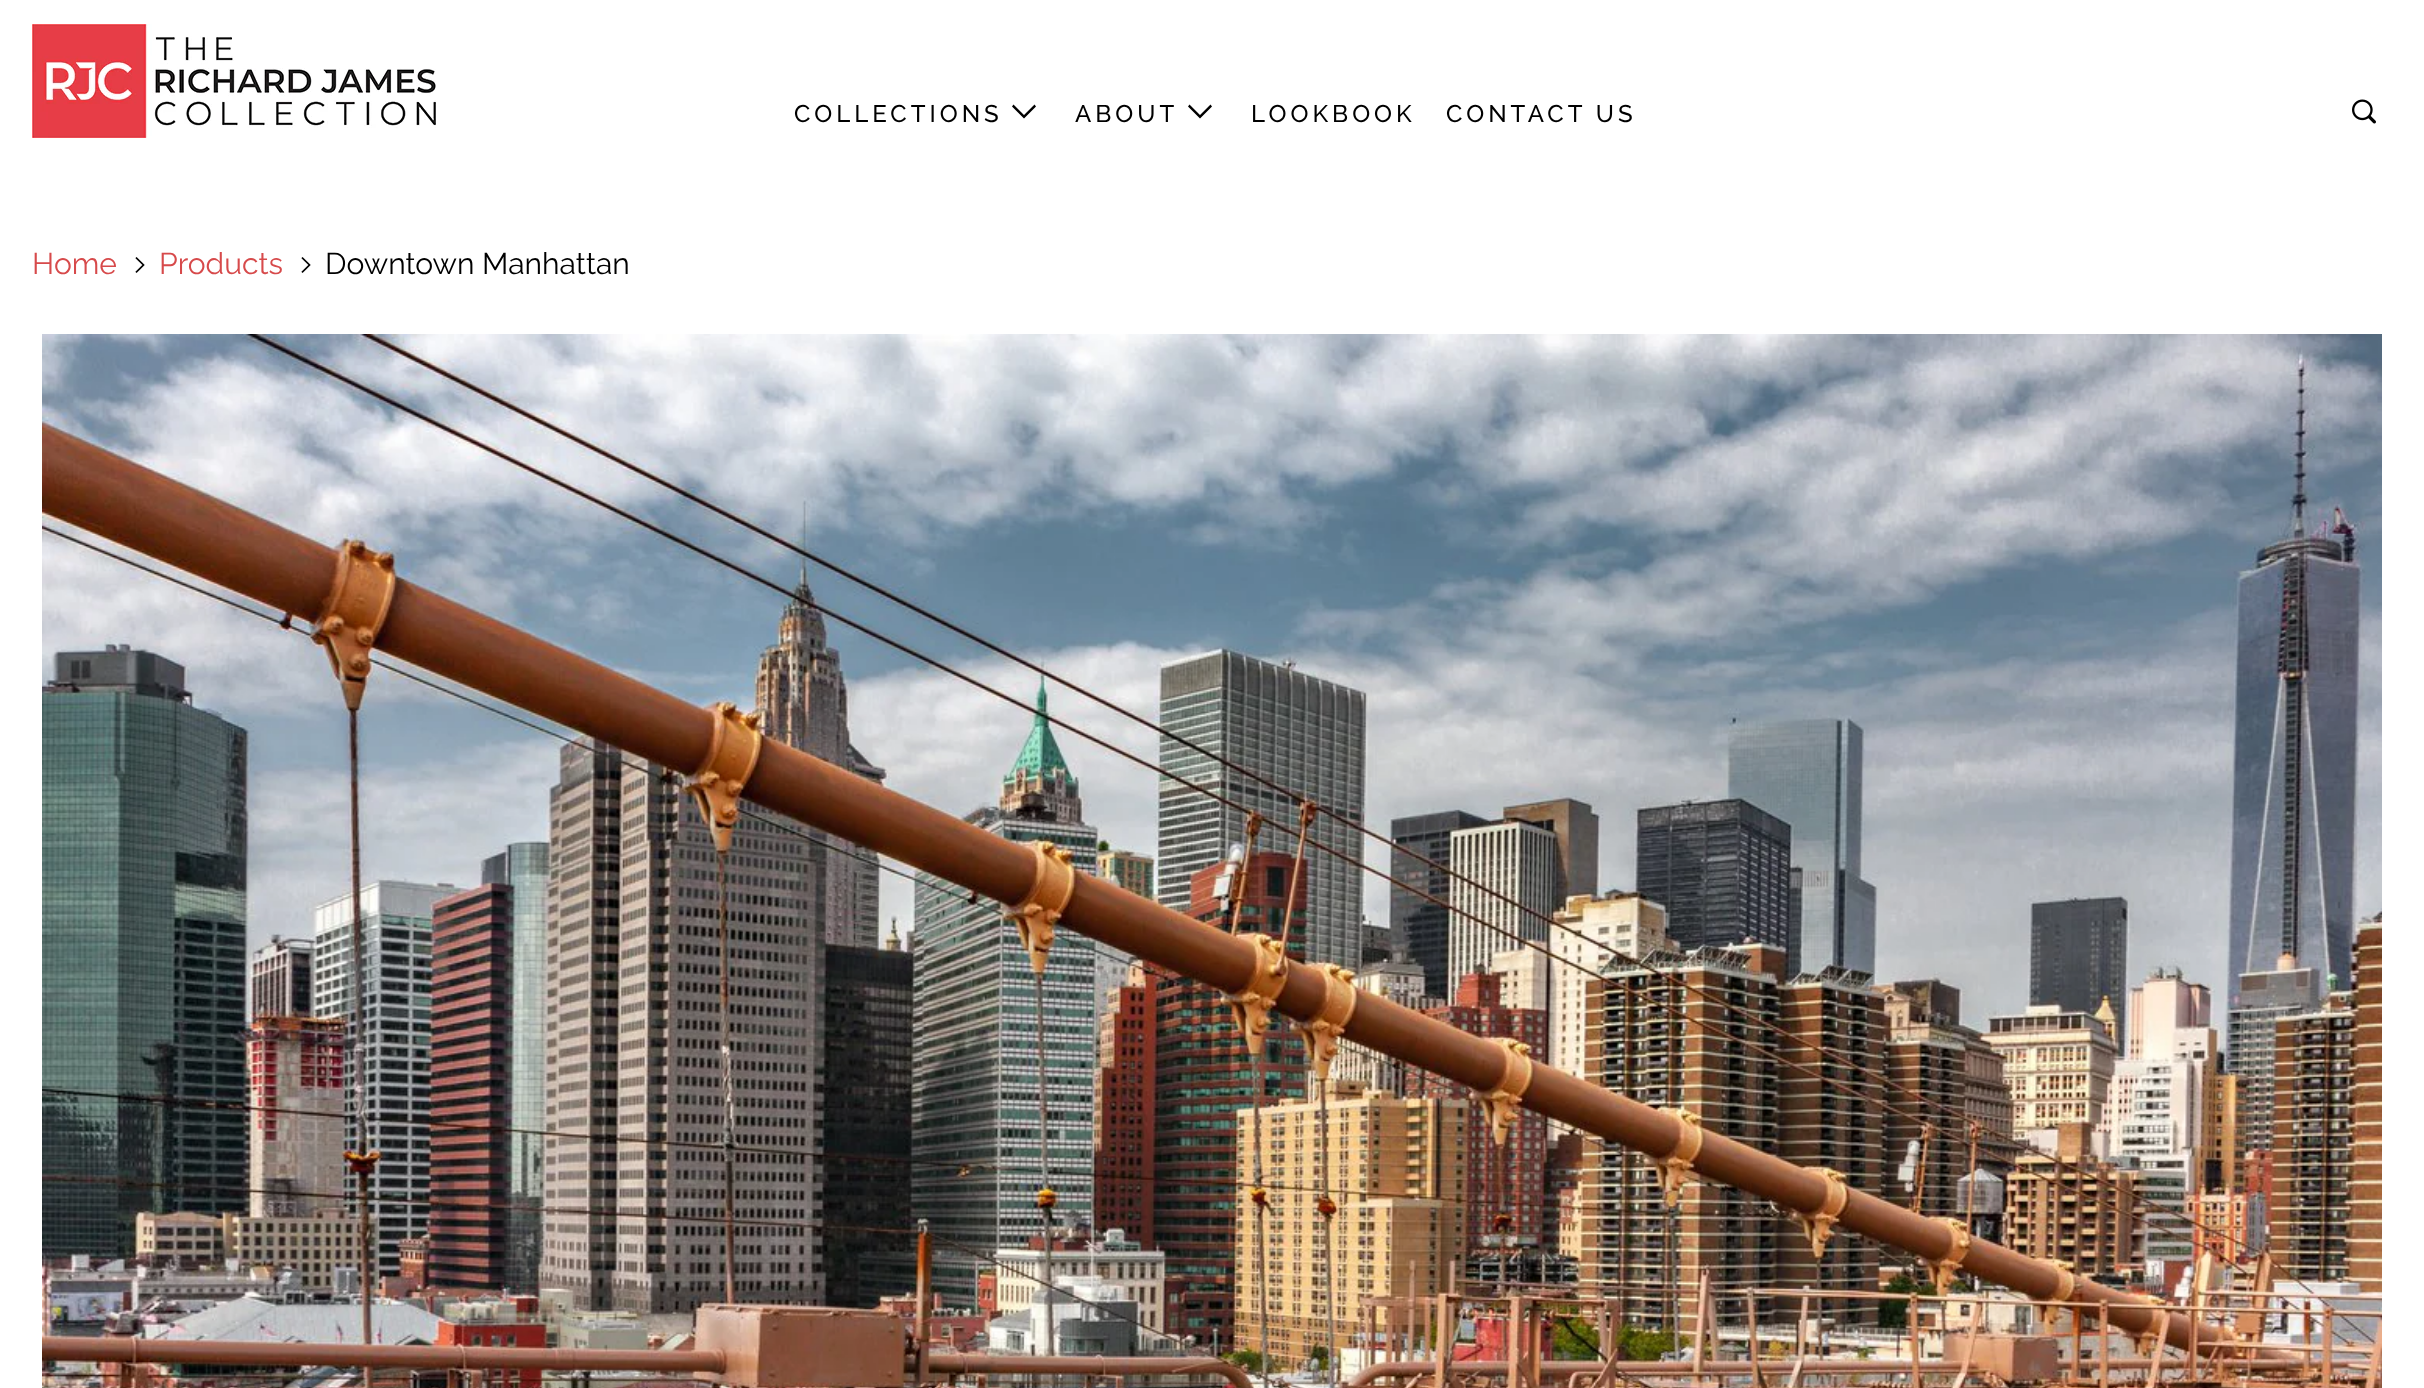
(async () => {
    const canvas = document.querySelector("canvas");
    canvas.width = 2424;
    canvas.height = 1388;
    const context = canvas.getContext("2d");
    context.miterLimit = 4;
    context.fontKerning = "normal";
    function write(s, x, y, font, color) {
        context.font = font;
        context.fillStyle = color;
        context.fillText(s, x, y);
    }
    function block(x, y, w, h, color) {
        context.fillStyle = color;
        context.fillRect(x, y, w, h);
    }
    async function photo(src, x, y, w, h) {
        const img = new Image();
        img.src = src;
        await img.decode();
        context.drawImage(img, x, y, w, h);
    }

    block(0, 0, 2424, 1388, "rgb(255, 255, 255)");
    await photo("media/1.png", 32, 24, 404, 114);
    context.letterSpacing = "4px";
    write("COLLECTIONS", 794, 122, "500 24px Raleway", "rgb(0, 0, 0)");
    context.beginPath();
    context.moveTo(1018, 112.5);
    context.lineTo(1012, 106.5);
    context.lineTo(1013.5, 104.5);
    context.lineTo(1024, 115);
    context.lineTo(1034.5, 104.5);
    context.lineTo(1036, 106.5);
    context.lineTo(1024, 118.5);
    context.closePath();
    context.fill();
    write("ABOUT", 1075, 122, "500 24px Raleway", "rgb(0, 0, 0)");
    context.beginPath();
    context.moveTo(1194, 112.5);
    context.lineTo(1188, 106.5);
    context.lineTo(1189.5, 104.5);
    context.lineTo(1200, 115);
    context.lineTo(1210.5, 104.5);
    context.lineTo(1212, 106.5);
    context.lineTo(1200, 118.5);
    context.closePath();
    context.fill();
    write("LOOKBOOK", 1251, 122, "500 24px Raleway", "rgb(0, 0, 0)");
    write("CONTACT US", 1446, 122, "500 24px Raleway", "rgb(0, 0, 0)");
    await photo("media/2.png", 2352, 99, 24, 25);
    context.letterSpacing = "0px";
    write("Home", 32, 274, "30px Raleway", "rgb(215, 74, 75)");
    await photo("media/3.png", 135, 257, 10, 16);
    write("Products", 159, 274, "30px Raleway", "rgb(215, 74, 75)");
    await photo("media/3.png", 301, 257, 10, 16);
    write("Downtown Manhattan", 325, 274, "30px Raleway", "rgb(0, 0, 0)");
    await photo("media/4.png", 42, 334, 2340, 1054);
})();
